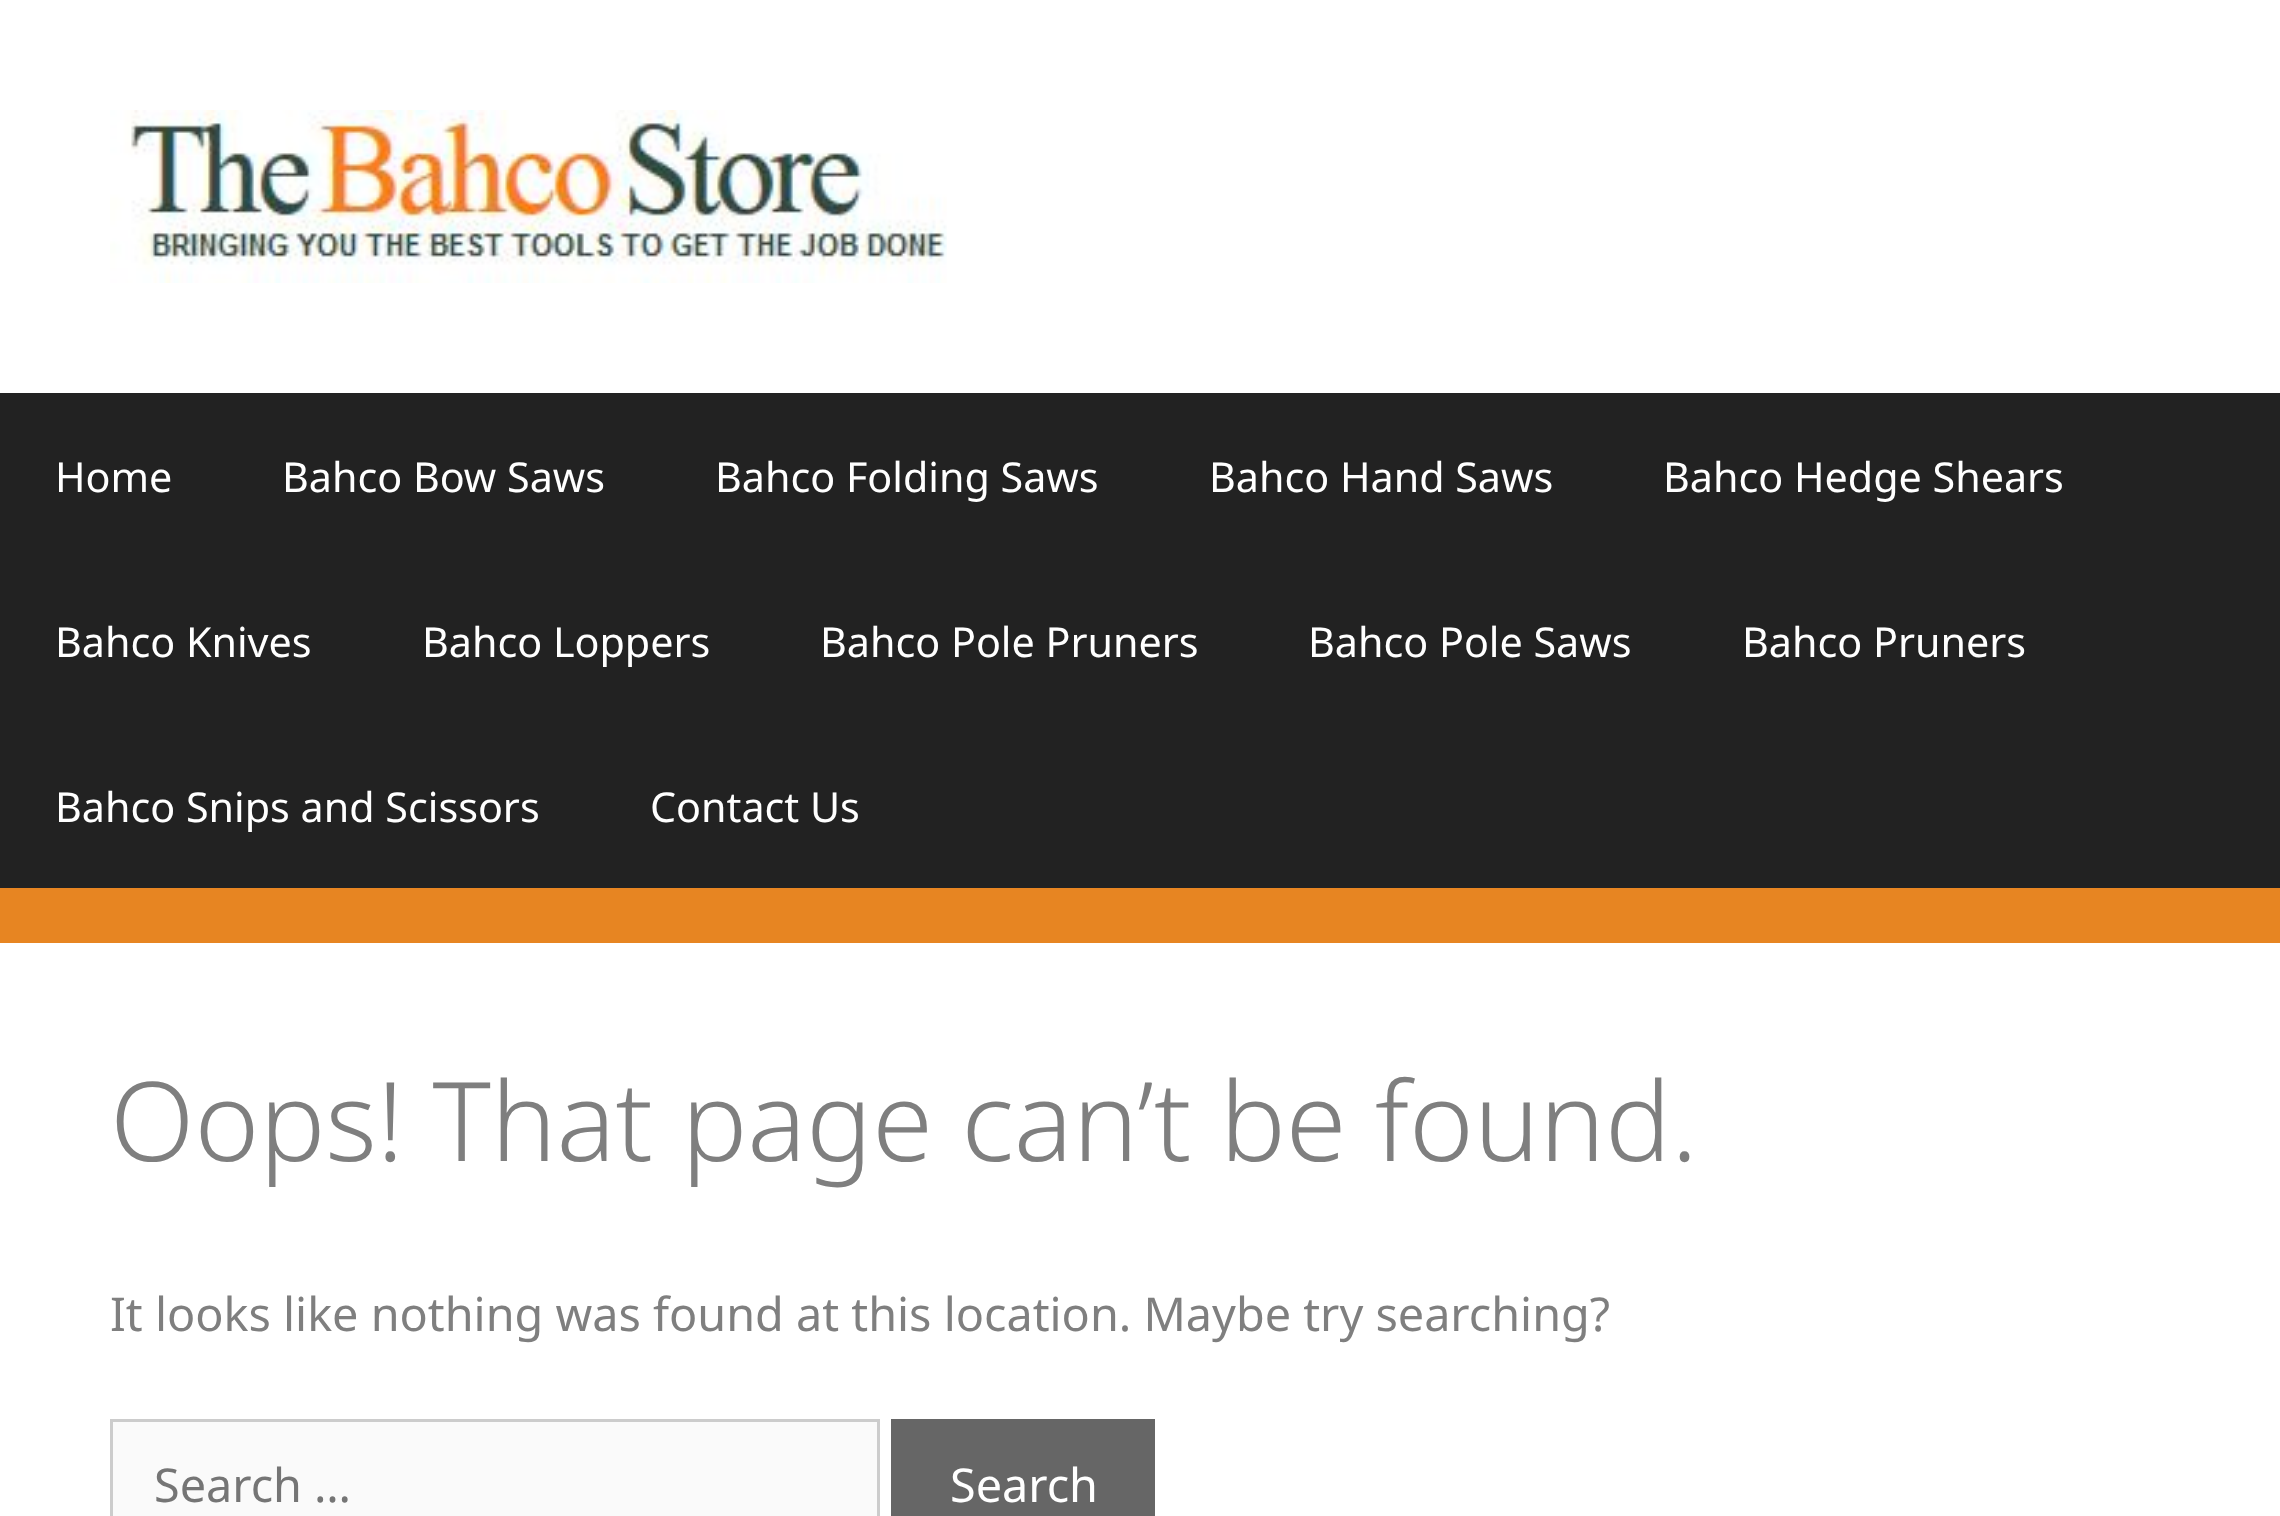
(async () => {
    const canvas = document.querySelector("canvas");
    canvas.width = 2280;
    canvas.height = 1516;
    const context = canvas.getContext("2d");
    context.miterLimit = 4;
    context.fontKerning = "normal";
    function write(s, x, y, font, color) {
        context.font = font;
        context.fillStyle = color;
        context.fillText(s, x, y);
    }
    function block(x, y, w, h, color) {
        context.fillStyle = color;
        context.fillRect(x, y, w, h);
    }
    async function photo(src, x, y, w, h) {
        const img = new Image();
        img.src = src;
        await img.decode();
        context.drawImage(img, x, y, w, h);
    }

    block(0, 0, 2280, 1516, "rgb(231, 133, 34)");
    block(0, 0, 2280, 393, "rgb(255, 255, 255)");
    await photo("media/1.png", 110, 110, 837, 173);
    block(0, 393, 2280, 495, "rgb(34, 34, 34)");
    write("Home", 55, 492, "41.25px Noto Sans", "rgb(255, 255, 255)");
    write("Bahco Bow Saws", 282, 492, "41.25px Noto Sans", "rgb(255, 255, 255)");
    write("Bahco Folding Saws", 715, 492, "41.25px Noto Sans", "rgb(255, 255, 255)");
    write("Bahco Hand Saws", 1209, 492, "41.25px Noto Sans", "rgb(255, 255, 255)");
    write("Bahco Hedge Shears", 1663, 492, "41.25px Noto Sans", "rgb(255, 255, 255)");
    write("Bahco Knives", 55, 657, "41.25px Noto Sans", "rgb(255, 255, 255)");
    write("Bahco Loppers", 422, 657, "41.25px Noto Sans", "rgb(255, 255, 255)");
    write("Bahco Pole Pruners", 820, 657, "41.25px Noto Sans", "rgb(255, 255, 255)");
    write("Bahco Pole Saws", 1308, 657, "41.25px Noto Sans", "rgb(255, 255, 255)");
    write("Bahco Pruners", 1742, 657, "41.25px Noto Sans", "rgb(255, 255, 255)");
    write("Bahco Snips and Scissors", 55, 822, "41.25px Noto Sans", "rgb(255, 255, 255)");
    write("Contact Us", 650, 822, "41.25px Noto Sans", "rgb(255, 255, 255)");
    block(0, 943, 2280, 573, "rgb(255, 255, 255)");
    write("Oops! That page can’t be found.", 110, 1161, "300 110px Noto Sans", "rgb(127, 127, 127)");
    write("It looks like nothing was found at this location. Maybe try searching?", 110, 1331, "46.75px Noto Sans", "rgb(127, 127, 127)");
    context.fillStyle = "rgb(250, 250, 250)";
    context.beginPath();
    context.rect(111.5, 1420.5, 767, 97);
    context.fill();
    context.strokeStyle = "rgb(204, 204, 204)";
    context.lineWidth = 3;
    context.stroke();
    write("Search …", 154, 1502, "46.75px Noto Sans", "rgb(117, 117, 117)");
    block(891, 1419, 264, 97, "rgb(102, 102, 102)");
    write("Search", 950, 1502, "46.75px Noto Sans", "rgb(255, 255, 255)");
})();
